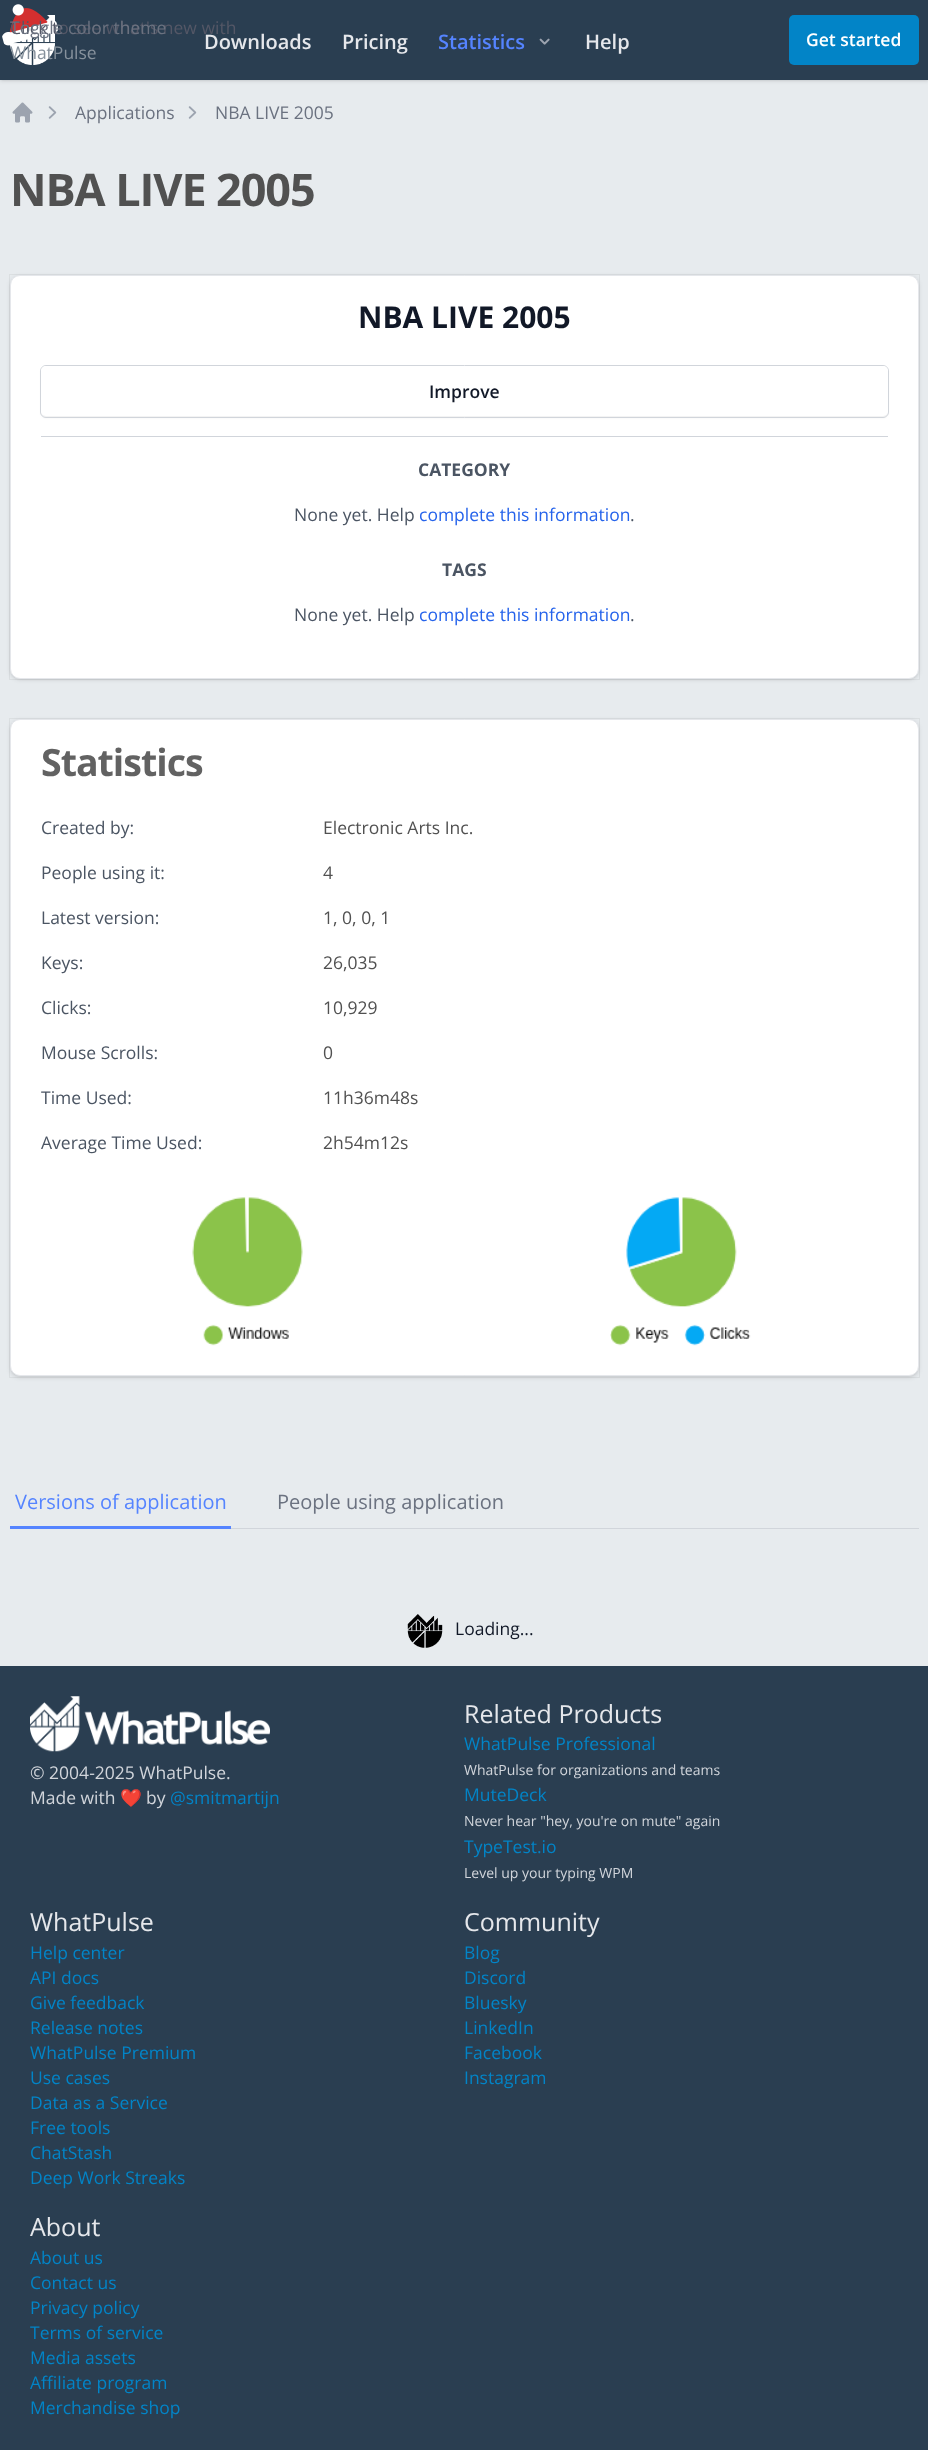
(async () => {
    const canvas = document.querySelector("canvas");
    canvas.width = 928;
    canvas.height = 2450;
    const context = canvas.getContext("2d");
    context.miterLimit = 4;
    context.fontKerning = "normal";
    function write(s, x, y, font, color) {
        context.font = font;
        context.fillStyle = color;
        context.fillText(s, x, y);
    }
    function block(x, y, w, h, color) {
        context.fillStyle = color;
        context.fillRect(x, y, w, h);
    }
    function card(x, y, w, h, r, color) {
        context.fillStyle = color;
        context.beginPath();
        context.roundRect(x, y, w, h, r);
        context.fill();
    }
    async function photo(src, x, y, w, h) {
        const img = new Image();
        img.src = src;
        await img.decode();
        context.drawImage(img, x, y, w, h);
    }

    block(0, 0, 928, 2450, "rgb(231, 235, 238)");
    context.fillStyle = "rgba(0, 0, 0, 0.1)";
    context.filter = "blur(1px)";
    context.beginPath();
    context.rect(1, 3, 927, 77);
    context.fill();
    context.filter = "none";
    context.filter = "blur(2px)";
    context.beginPath();
    context.rect(0, 1, 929, 80);
    context.fill();
    context.filter = "none";
    block(0, 0, 928, 80, "rgb(42, 62, 81)");
    await photo("media/2.png", 10, 15, 45, 50);
    await photo("media/1.png", 2, 4, 57, 42);
    write("Click to see what's new with", 10, 34, "17.5px Open Sans", "rgb(84, 87, 102)");
    write("WhatPulse", 10, 59, "17.5px Open Sans", "rgb(134, 145, 156)");
    write("Toggle color theme", 10, 34, "17.5px Open Sans", "rgb(107, 114, 128)");
    write("Downloads", 204, 49, "600 20px Open Sans", "rgb(229, 231, 235)");
    write("Pricing", 342, 49, "600 20px Open Sans", "rgb(229, 231, 235)");
    write("Statistics", 438, 49, "600 20px Open Sans", "rgb(85, 132, 255)");
    await photo("media/3.png", 539, 38, 11, 7);
    write("Help", 585, 49, "600 20px Open Sans", "rgb(229, 231, 235)");
    card(789, 15, 130, 50, 5, "rgb(2, 132, 199)");
    write("Get started", 806, 46, "600 17.5px Open Sans", "rgb(255, 255, 255)");
    await photo("media/4.png", 12, 102, 21, 21);
    await photo("media/5.png", 48, 106, 9, 13);
    write("Applications", 75, 119, "17.5px Open Sans", "rgb(107, 114, 128)");
    await photo("media/5.png", 188, 106, 9, 13);
    write("NBA LIVE 2005", 215, 119, "17.5px Open Sans", "rgb(107, 114, 128)");
    context.letterSpacing = "-1.1px";
    write("NBA LIVE 2005", 10, 206, "bold 45px Open Sans", "rgb(81, 81, 81)");
    context.fillStyle = "rgba(0, 0, 0, 0.1)";
    context.filter = "blur(1px)";
    context.beginPath();
    context.roundRect(11, 278, 907, 401, 9);
    context.fill();
    context.filter = "none";
    context.filter = "blur(2px)";
    context.beginPath();
    context.roundRect(10, 276, 909, 404, 10);
    context.fill();
    context.filter = "none";
    context.strokeStyle = "rgba(0, 0, 0, 0.05)";
    context.strokeRect(9.5, 274.5, 910, 405);
    context.fillStyle = "rgb(255, 255, 255)";
    context.beginPath();
    context.roundRect(10.5, 275.5, 908, 403, 9.5);
    context.fill();
    context.strokeStyle = "rgb(229, 231, 235)";
    context.stroke();
    context.letterSpacing = "0px";
    write("NBA LIVE 2005", 358, 328, "bold 30px Open Sans", "rgb(17, 24, 39)");
    context.fillStyle = "rgba(0, 0, 0, 0.05)";
    context.filter = "blur(1px)";
    context.beginPath();
    context.roundRect(41, 368, 847, 50, 5);
    context.fill();
    context.filter = "none";
    context.beginPath();
    context.roundRect(40.5, 365.5, 848, 52, 5.5);
    context.strokeStyle = "rgb(209, 213, 219)";
    context.stroke();
    card(41, 366, 847, 50, 5, "rgb(255, 255, 255)");
    write("Improve", 429, 398, "600 17.5px Open Sans", "rgb(17, 24, 39)");
    block(41, 436, 847, 1, "rgb(209, 213, 219)");
    write("CATEGORY", 418, 476, "bold 17.5px Open Sans", "rgb(75, 85, 99)");
    write("None yet. Help", 294, 521, "17.5px Open Sans", "rgb(75, 85, 99)");
    write("complete this information", 419, 521, "17.5px Open Sans", "rgb(37, 99, 235)");
    write(".", 630, 521, "17.5px Open Sans", "rgb(75, 85, 99)");
    write("TAGS", 442, 576, "bold 17.5px Open Sans", "rgb(75, 85, 99)");
    write("None yet. Help", 294, 621, "17.5px Open Sans", "rgb(75, 85, 99)");
    write("complete this information", 419, 621, "17.5px Open Sans", "rgb(37, 99, 235)");
    write(".", 630, 621, "17.5px Open Sans", "rgb(75, 85, 99)");
    context.fillStyle = "rgba(0, 0, 0, 0.1)";
    context.filter = "blur(1px)";
    context.beginPath();
    context.roundRect(11, 721, 907, 655, 9);
    context.fill();
    context.filter = "none";
    context.filter = "blur(2px)";
    context.beginPath();
    context.roundRect(10, 720, 909, 658, 10);
    context.fill();
    context.filter = "none";
    context.strokeStyle = "rgba(0, 0, 0, 0.05)";
    context.strokeRect(9.5, 718.5, 910, 659);
    context.fillStyle = "rgb(255, 255, 255)";
    context.beginPath();
    context.roundRect(10.5, 719.5, 908, 656, 9.5);
    context.fill();
    context.strokeStyle = "rgb(229, 231, 235)";
    context.stroke();
    context.letterSpacing = "-1px";
    write("Statistics", 41, 776, "bold 37.5px Open Sans", "rgb(98, 98, 98)");
    context.letterSpacing = "0px";
    write("Created by:", 41, 834, "17.5px Open Sans", "rgb(75, 85, 99)");
    write("Electronic Arts Inc.", 323, 834, "17.5px Open Sans", "rgb(81, 81, 81)");
    write("People using it:", 41, 879, "17.5px Open Sans", "rgb(75, 85, 99)");
    write("4", 323, 879, "17.5px Open Sans", "rgb(81, 81, 81)");
    write("Latest version:", 41, 924, "17.5px Open Sans", "rgb(75, 85, 99)");
    write("1, 0, 0, 1", 323, 924, "17.5px Open Sans", "rgb(81, 81, 81)");
    write("Keys:", 41, 969, "17.5px Open Sans", "rgb(75, 85, 99)");
    write("26,035", 323, 969, "17.5px Open Sans", "rgb(81, 81, 81)");
    write("Clicks:", 41, 1014, "17.5px Open Sans", "rgb(75, 85, 99)");
    write("10,929", 323, 1014, "17.5px Open Sans", "rgb(81, 81, 81)");
    write("Mouse Scrolls:", 41, 1059, "17.5px Open Sans", "rgb(75, 85, 99)");
    write("0", 323, 1059, "17.5px Open Sans", "rgb(81, 81, 81)");
    write("Time Used:", 41, 1104, "17.5px Open Sans", "rgb(75, 85, 99)");
    write("11h36m48s", 323, 1104, "17.5px Open Sans", "rgb(81, 81, 81)");
    write("Average Time Used:", 41, 1149, "17.5px Open Sans", "rgb(75, 85, 99)");
    write("2h54m12s", 323, 1149, "17.5px Open Sans", "rgb(81, 81, 81)");
    await photo("media/6.png", 192, 1197, 111, 149);
    await photo("media/7.png", 610, 1197, 141, 149);
    block(231, 1528, 688, 1, "rgb(209, 213, 219)");
    block(10, 1526, 221, 3, "rgb(85, 132, 255)");
    write("Versions of application", 15, 1509, "20px Open Sans", "rgb(85, 132, 255)");
    write("People using application", 277, 1509, "20px Open Sans", "rgb(107, 114, 128)");
    await photo("media/8.png", 407, 1614, 36, 34);
    write("Loading...", 455, 1635, "17.5px Open Sans", "rgb(17, 24, 39)");
    block(0, 1666, 928, 784, "rgb(42, 62, 81)");
    await photo("media/9.png", 30, 1696, 240, 56);
    write("© 2004-2025 WhatPulse.", 30, 1779, "17.5px Open Sans", "rgb(209, 213, 219)");
    write("Made with", 30, 1804, "17.5px Open Sans", "rgb(209, 213, 219)");
    write("❤️", 120, 1804, "17.5px Noto Color Emoji", "rgb(209, 213, 219)");
    write("by", 146, 1804, "17.5px Open Sans", "rgb(209, 213, 219)");
    write("@smitmartijn", 170, 1804, "17.5px Open Sans", "rgb(2, 132, 199)");
    write("Related Products", 464, 1723, "25px Open Sans", "rgb(229, 231, 235)");
    write("WhatPulse Professional", 464, 1750, "17.5px Open Sans", "rgb(2, 132, 199)");
    write("WhatPulse for organizations and teams", 464, 1775, "14px Open Sans", "rgb(209, 213, 219)");
    write("MuteDeck", 464, 1801, "17.5px Open Sans", "rgb(2, 132, 199)");
    write("Never hear \"hey, you're on mute\" again", 464, 1826, "14px Open Sans", "rgb(209, 213, 219)");
    write("TypeTest.io", 464, 1853, "17.5px Open Sans", "rgb(2, 132, 199)");
    write("Level up your typing WPM", 464, 1878, "14px Open Sans", "rgb(209, 213, 219)");
    write("WhatPulse", 30, 1931, "25px Open Sans", "rgb(229, 231, 235)");
    write("Help center", 30, 1959, "17.5px Open Sans", "rgb(2, 132, 199)");
    write("API docs", 30, 1984, "17.5px Open Sans", "rgb(2, 132, 199)");
    write("Give feedback", 30, 2009, "17.5px Open Sans", "rgb(2, 132, 199)");
    write("Release notes", 30, 2034, "17.5px Open Sans", "rgb(2, 132, 199)");
    write("WhatPulse Premium", 30, 2059, "17.5px Open Sans", "rgb(2, 132, 199)");
    write("Use cases", 30, 2084, "17.5px Open Sans", "rgb(2, 132, 199)");
    write("Data as a Service", 30, 2109, "17.5px Open Sans", "rgb(2, 132, 199)");
    write("Free tools", 30, 2134, "17.5px Open Sans", "rgb(2, 132, 199)");
    write("ChatStash", 30, 2159, "17.5px Open Sans", "rgb(2, 132, 199)");
    write("Deep Work Streaks", 30, 2184, "17.5px Open Sans", "rgb(2, 132, 199)");
    write("Community", 464, 1931, "25px Open Sans", "rgb(229, 231, 235)");
    write("Blog", 464, 1959, "17.5px Open Sans", "rgb(2, 132, 199)");
    write("Discord", 464, 1984, "17.5px Open Sans", "rgb(2, 132, 199)");
    write("Bluesky", 464, 2009, "17.5px Open Sans", "rgb(2, 132, 199)");
    write("LinkedIn", 464, 2034, "17.5px Open Sans", "rgb(2, 132, 199)");
    write("Facebook", 464, 2059, "17.5px Open Sans", "rgb(2, 132, 199)");
    write("Instagram", 464, 2084, "17.5px Open Sans", "rgb(2, 132, 199)");
    write("About", 30, 2236, "25px Open Sans", "rgb(229, 231, 235)");
    write("About us", 30, 2264, "17.5px Open Sans", "rgb(2, 132, 199)");
    write("Contact us", 30, 2289, "17.5px Open Sans", "rgb(2, 132, 199)");
    write("Privacy policy", 30, 2314, "17.5px Open Sans", "rgb(2, 132, 199)");
    write("Terms of service", 30, 2339, "17.5px Open Sans", "rgb(2, 132, 199)");
    write("Media assets", 30, 2364, "17.5px Open Sans", "rgb(2, 132, 199)");
    write("Affiliate program", 30, 2389, "17.5px Open Sans", "rgb(2, 132, 199)");
    write("Merchandise shop", 30, 2414, "17.5px Open Sans", "rgb(2, 132, 199)");
})();
